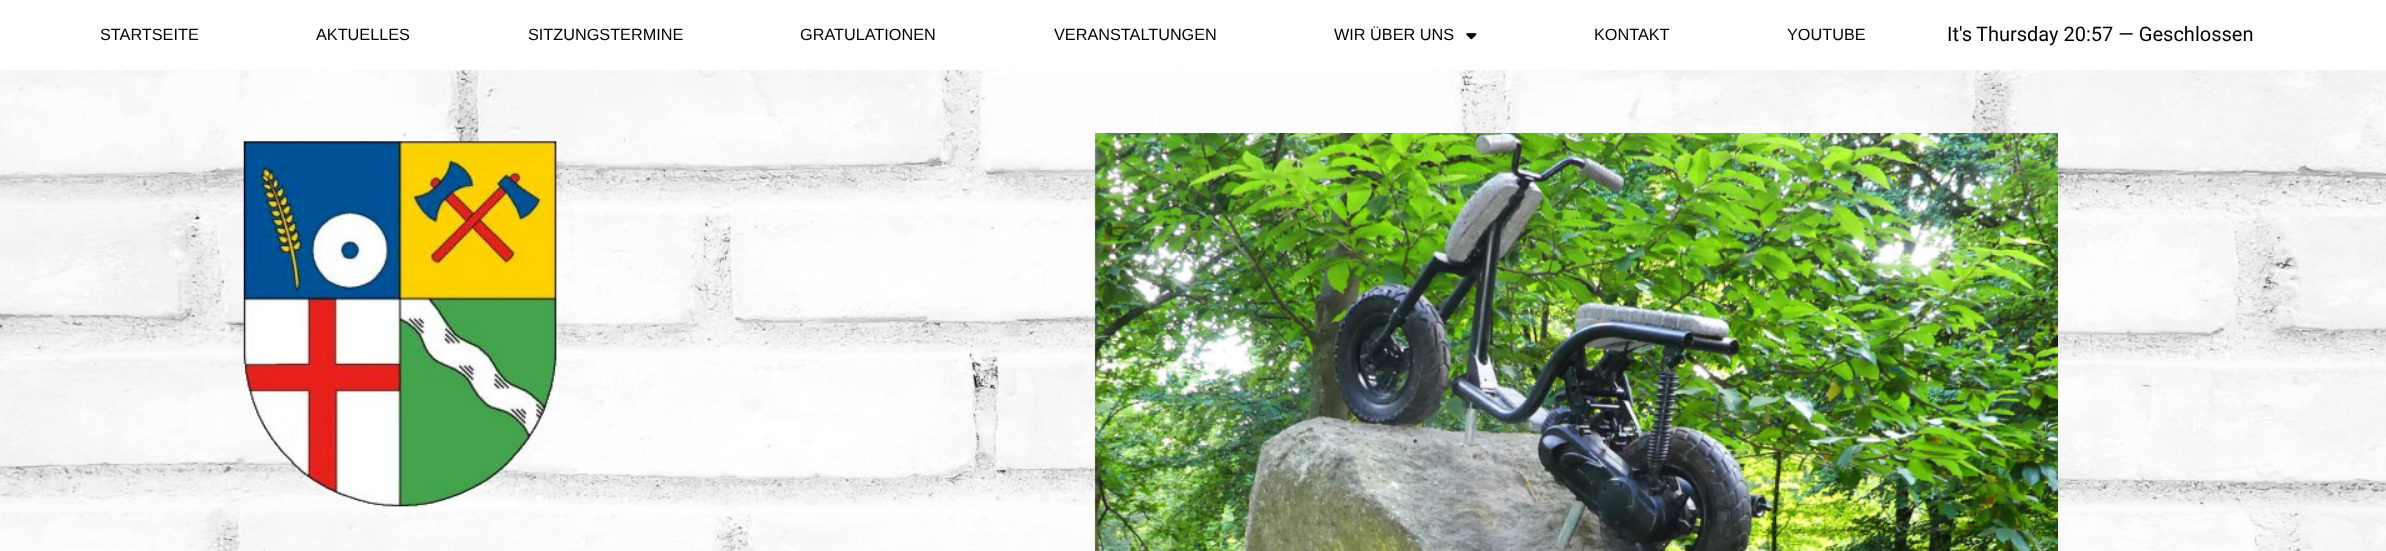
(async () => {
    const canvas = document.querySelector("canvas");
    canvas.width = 2386;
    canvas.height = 551;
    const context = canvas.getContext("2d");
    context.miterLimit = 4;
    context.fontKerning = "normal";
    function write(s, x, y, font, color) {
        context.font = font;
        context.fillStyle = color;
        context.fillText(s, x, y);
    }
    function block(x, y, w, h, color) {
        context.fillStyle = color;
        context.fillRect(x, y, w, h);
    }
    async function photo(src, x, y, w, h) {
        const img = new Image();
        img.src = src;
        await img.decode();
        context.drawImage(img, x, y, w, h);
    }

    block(0, 0, 2386, 551, "rgb(255, 255, 255)");
    write("STARTSEITE", 100, 40, "16.25px Liberation Sans", "rgb(0, 0, 0)");
    write("AKTUELLES", 316, 40, "16.25px Liberation Sans", "rgb(0, 0, 0)");
    write("SITZUNGSTERMINE", 528, 40, "16.25px Liberation Sans", "rgb(0, 0, 0)");
    write("GRATULATIONEN", 800, 40, "16.25px Liberation Sans", "rgb(0, 0, 0)");
    write("VERANSTALTUNGEN", 1054, 40, "16.25px Liberation Sans", "rgb(0, 0, 0)");
    write("WIR ÜBER UNS", 1334, 40, "16.25px Liberation Sans", "rgb(0, 0, 0)");
    await photo("media/1.png", 1466, 33, 11, 7);
    write("KONTAKT", 1594, 40, "16.25px Liberation Sans", "rgb(0, 0, 0)");
    write("YOUTUBE", 1787, 40, "16.25px Liberation Sans", "rgb(0, 0, 0)");
    write("It's", 1947, 41, "20px Roboto", "rgb(0, 0, 0)");
    write("Thursday 20:57 — Geschlossen", 1976, 41, "20px Roboto", "rgb(0, 0, 0)");
    await photo("media/2.png", 0, 70, 2386, 481);
    await photo("media/3.png", 243, 141, 314, 366);
    await photo("media/4.png", 1094, 133, 964, 418);
})();
